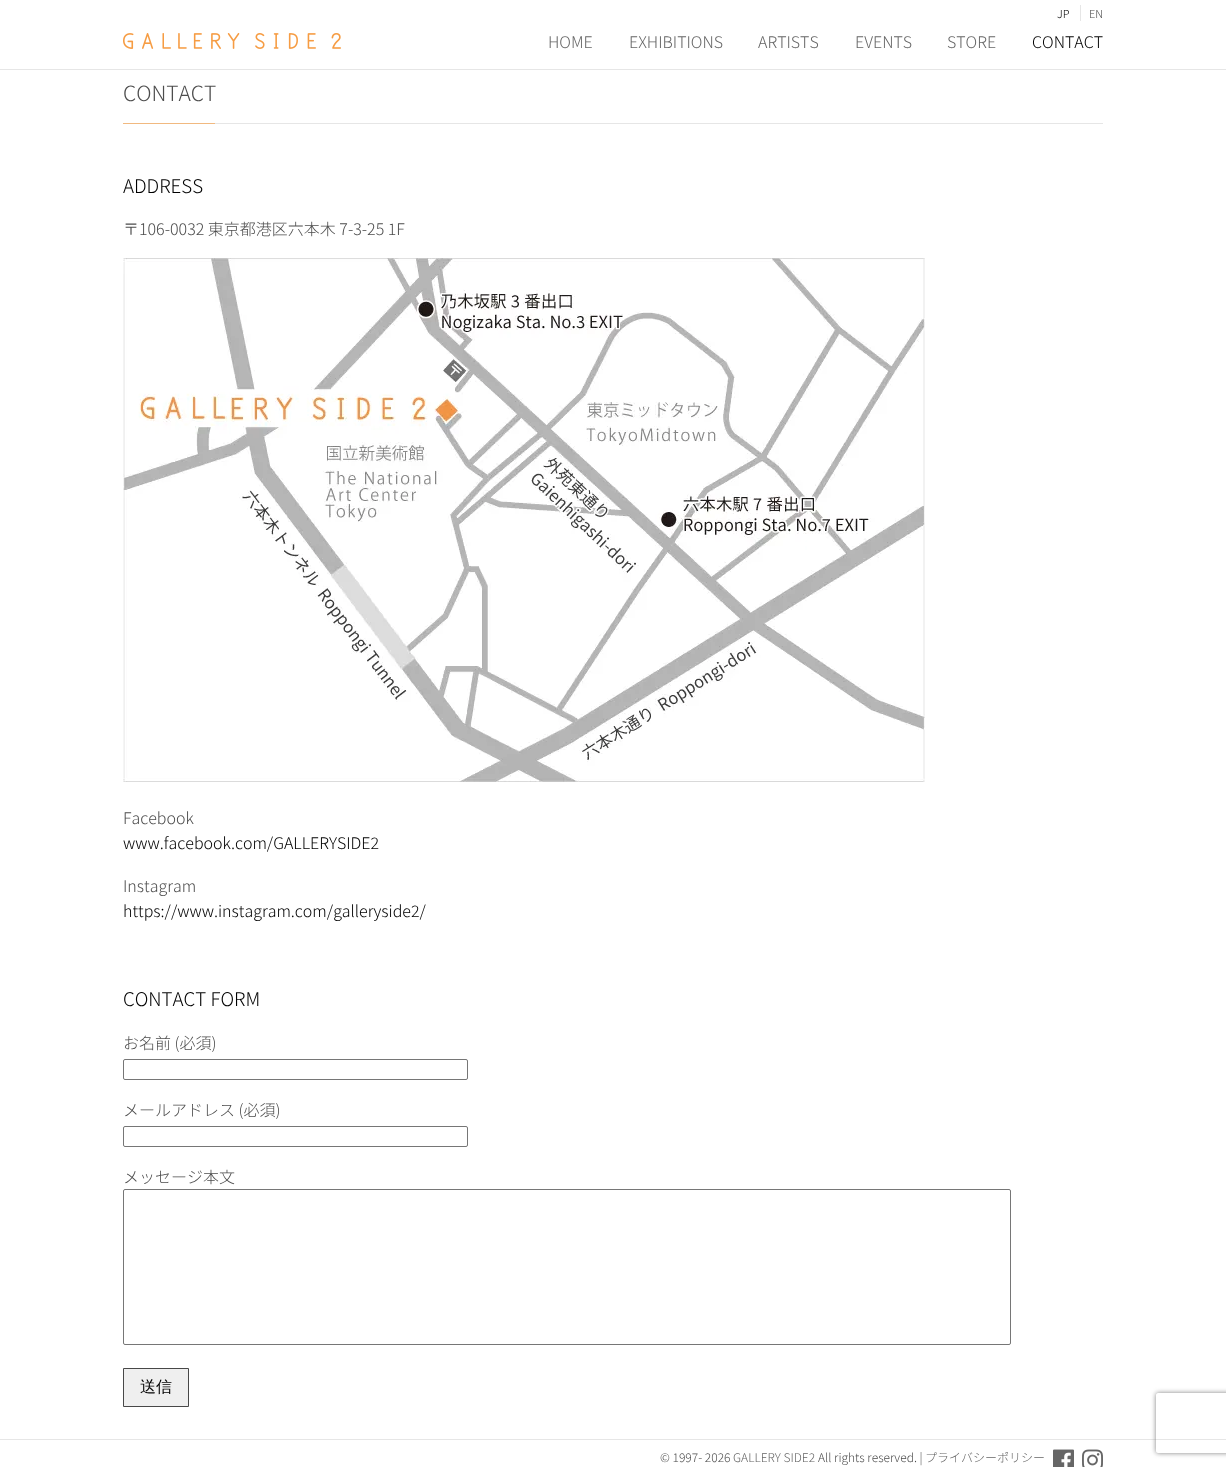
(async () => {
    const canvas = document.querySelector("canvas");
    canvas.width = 1226;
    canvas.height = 1467;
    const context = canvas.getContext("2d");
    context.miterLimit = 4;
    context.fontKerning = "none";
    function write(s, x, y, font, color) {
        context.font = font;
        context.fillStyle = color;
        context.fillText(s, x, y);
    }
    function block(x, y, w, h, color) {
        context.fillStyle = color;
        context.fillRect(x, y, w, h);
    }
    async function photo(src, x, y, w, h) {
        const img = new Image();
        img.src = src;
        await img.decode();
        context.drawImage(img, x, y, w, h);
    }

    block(0, 0, 1226, 1467, "rgb(255, 255, 255)");
    block(0, 69, 1226, 1, "rgb(230, 230, 230)");
    write("JP", 1057, 18, "300 11px Noto Sans JP", "rgb(0, 0, 0)");
    write("EN", 1089, 18, "300 11px Noto Sans JP", "rgb(77, 77, 77)");
    block(1080, 5, 1, 16, "rgb(230, 230, 230)");
    await photo("media/1.png", 123, 33, 218, 16);
    write("HOME", 548, 48, "300 16px Noto Sans JP", "rgb(102, 102, 102)");
    write("EXHIBITIONS", 629, 48, "300 16px Noto Sans JP", "rgb(102, 102, 102)");
    write("ARTISTS", 758, 48, "300 16px Noto Sans JP", "rgb(102, 102, 102)");
    write("EVENTS", 855, 48, "300 16px Noto Sans JP", "rgb(102, 102, 102)");
    write("STORE", 947, 48, "300 16px Noto Sans JP", "rgb(102, 102, 102)");
    write("CONTACT", 1032, 48, "300 16px Noto Sans JP", "rgb(0, 0, 0)");
    block(215, 123, 888, 1, "rgb(230, 230, 230)");
    write("CONTACT", 123, 101, "300 21px Noto Sans JP", "rgb(77, 77, 77)");
    block(123, 123, 92, 1, "rgb(241, 185, 128)");
    write("ADDRESS", 123, 193, "300 18.75px Noto Sans JP", "rgb(0, 0, 0)");
    write("〒106-0032 東京都港区六本木 7-3-25 1F", 123, 235, "300 16px Noto Sans JP", "rgb(77, 77, 77)");
    await photo("media/2.png", 123, 258, 802, 524);
    write("Facebook", 123, 824, "300 16px Noto Sans JP", "rgb(77, 77, 77)");
    write("www.facebook.com/GALLERYSIDE2", 123, 849, "300 16px Noto Sans JP", "rgb(0, 0, 0)");
    write("Instagram", 123, 892, "300 16px Noto Sans JP", "rgb(77, 77, 77)");
    write("https://www.instagram.com/galleryside2/", 123, 917, "300 16px Noto Sans JP", "rgb(0, 0, 0)");
    write("CONTACT FORM", 123, 1006, "300 18.75px Noto Sans JP", "rgb(0, 0, 0)");
    write("お名前 (必須)", 123, 1049, "300 16px Noto Sans JP", "rgb(77, 77, 77)");
    context.beginPath();
    context.roundRect(123.5, 1059.5, 344, 20, 1.5);
    context.strokeStyle = "rgb(118, 118, 118)";
    context.stroke();
    write("メールアドレス (必須)", 123, 1116, "300 16px Noto Sans JP", "rgb(77, 77, 77)");
    context.beginPath();
    context.roundRect(123.5, 1126.5, 344, 20, 1.5);
    context.stroke();
    write("メッセージ本文", 123, 1183, "300 16px Noto Sans JP", "rgb(77, 77, 77)");
    context.beginPath();
    context.roundRect(123.5, 1189.5, 887, 155, 1.5);
    context.stroke();
    context.fillStyle = "rgb(239, 239, 239)";
    context.beginPath();
    context.rect(123.5, 1368.5, 65, 38);
    context.fill();
    context.strokeStyle = "rgb(72, 72, 72)";
    context.stroke();
    write("送信", 140, 1392, "500 16px WenQuanYi Zen Hei", "rgb(0, 0, 0)");
    block(0, 1439, 1226, 1, "rgb(230, 230, 230)");
    write("© 1997- 2026", 660, 1462, "300 12px Noto Sans JP", "rgb(77, 77, 77)");
    write("GALLERY SIDE2", 733, 1462, "300 12px Noto Sans JP", "rgb(102, 102, 102)");
    write("All rights reserved. |", 818, 1462, "300 12px Noto Sans JP", "rgb(77, 77, 77)");
    write("プライバシーポリシー", 925, 1462, "300 12px Noto Sans JP", "rgb(102, 102, 102)");
    await photo("media/3.png", 1053, 1449, 21, 18);
    await photo("media/4.png", 1082, 1449, 21, 18);
    context.save();
    context.beginPath();
    context.moveTo(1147, 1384);
    context.lineTo(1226, 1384);
    context.lineTo(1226, 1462);
    context.lineTo(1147, 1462);
    context.closePath();
    context.moveTo(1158, 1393);
    context.lineTo(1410, 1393);
    context.bezierCurveTo(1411, 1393, 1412, 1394, 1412, 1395);
    context.lineTo(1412, 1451);
    context.bezierCurveTo(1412, 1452, 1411, 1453, 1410, 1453);
    context.lineTo(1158, 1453);
    context.bezierCurveTo(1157, 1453, 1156, 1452, 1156, 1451);
    context.lineTo(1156, 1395);
    context.bezierCurveTo(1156, 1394, 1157, 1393, 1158, 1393);
    context.closePath();
    context.clip("evenodd");
    context.fillStyle = "rgb(128, 128, 128)";
    context.filter = "blur(2.5px)";
    context.beginPath();
    context.roundRect(1156, 1393, 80, 60, 2);
    context.fill();
    context.filter = "none";
    context.restore();
})();
